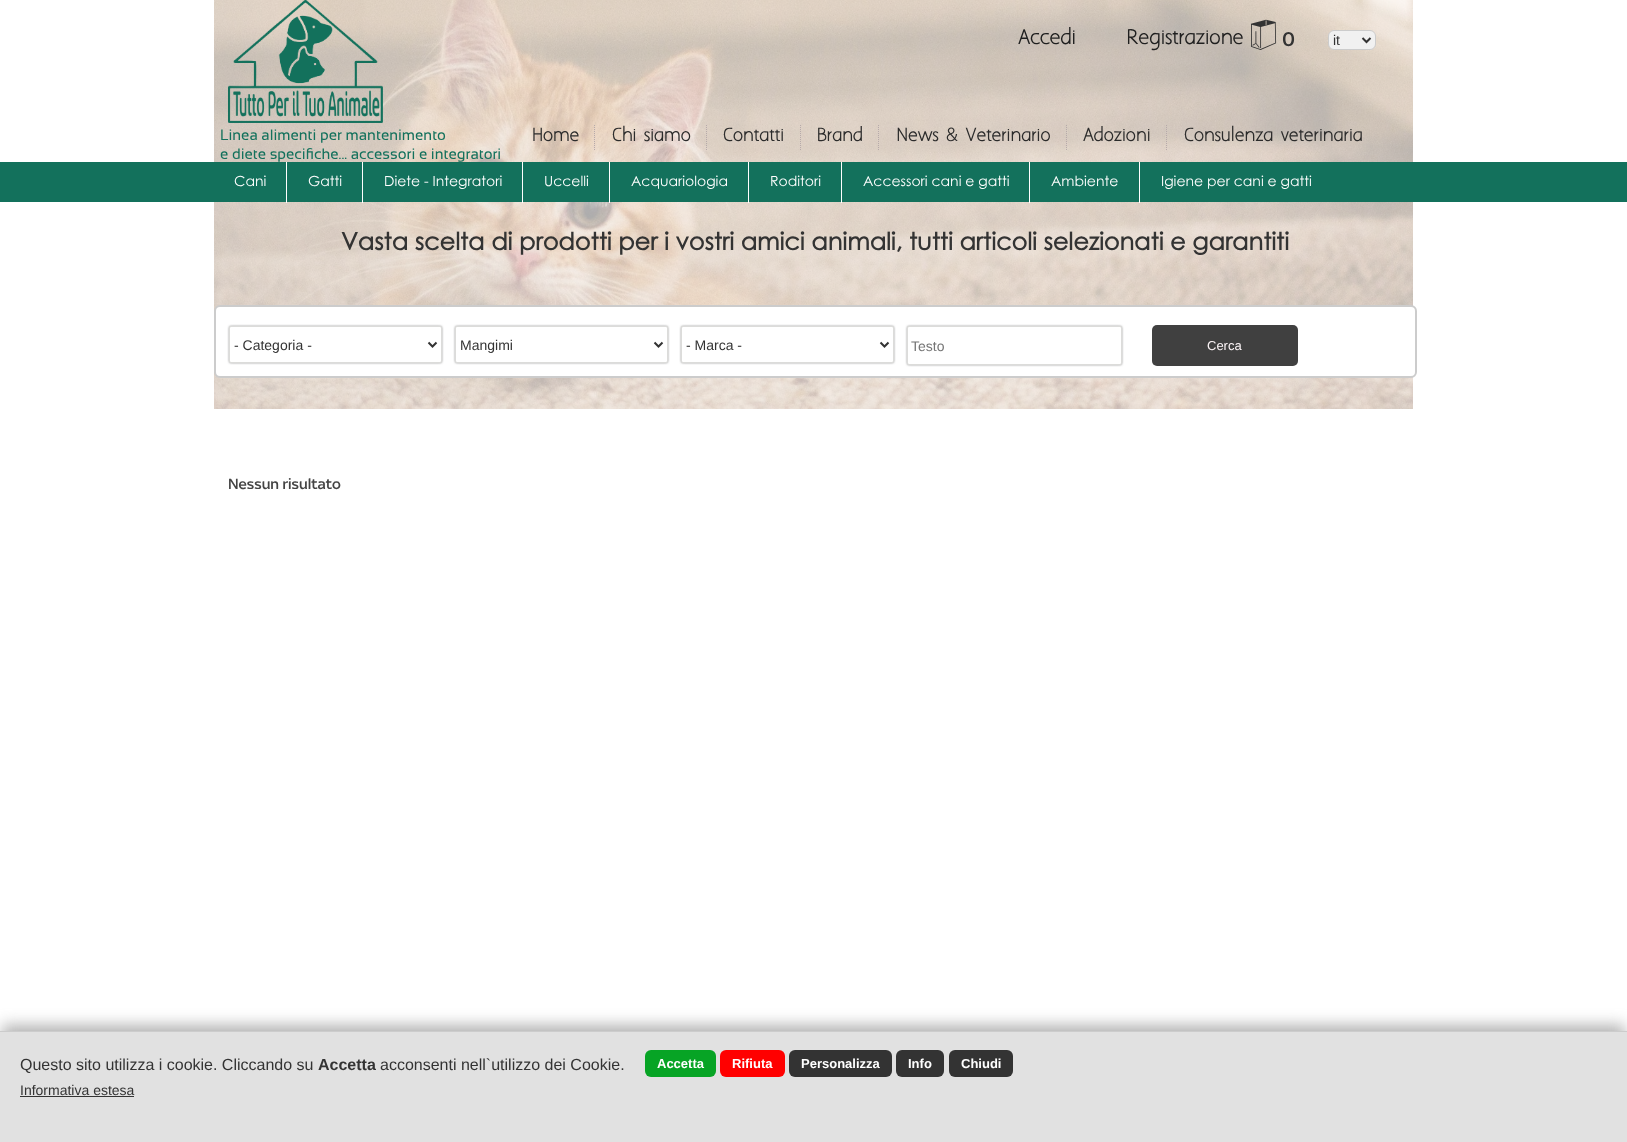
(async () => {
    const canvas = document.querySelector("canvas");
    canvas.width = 1627;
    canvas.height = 1142;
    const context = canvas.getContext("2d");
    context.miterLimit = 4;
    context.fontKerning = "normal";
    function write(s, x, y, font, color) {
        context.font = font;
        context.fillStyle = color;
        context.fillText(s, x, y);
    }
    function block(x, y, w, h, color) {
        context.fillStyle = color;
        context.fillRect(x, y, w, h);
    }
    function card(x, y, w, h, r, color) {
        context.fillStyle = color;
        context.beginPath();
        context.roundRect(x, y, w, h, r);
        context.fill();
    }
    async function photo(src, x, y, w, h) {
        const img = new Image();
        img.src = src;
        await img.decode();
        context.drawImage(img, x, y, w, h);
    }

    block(0, 0, 1627, 1142, "rgb(255, 255, 255)");
    await photo("media/1.png", 214, 0, 1199, 409);
    await photo("media/2.png", 228, 0, 155, 123);
    write("Accedi", 1018, 44, "bold 18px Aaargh", "rgb(31, 31, 31)");
    write("Registrazione", 1126, 44, "bold 18px Aaargh", "rgb(31, 31, 31)");
    write("*", 1251, 50, "38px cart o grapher", "rgb(51, 51, 51)");
    write("0", 1282, 46, "500 20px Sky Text", "rgb(51, 51, 51)");
    context.fillStyle = "rgb(241, 241, 241)";
    context.beginPath();
    context.roundRect(1328.5, 30.5, 47, 19, 5.5);
    context.fill();
    context.strokeStyle = "rgb(204, 204, 204)";
    context.stroke();
    context.beginPath();
    context.moveTo(1362.5, 38);
    context.lineTo(1366.5, 42);
    context.lineTo(1370.5, 38);
    context.strokeStyle = "rgb(51, 51, 51)";
    context.lineWidth = 2;
    context.stroke();
    write("it", 1333, 45, "14px Liberation Sans", "rgb(51, 51, 51)");
    write("Linea alimenti per mantenimento", 220, 140, "15px Sansation", "rgb(19, 113, 92)");
    write("e diete specifiche... accessori e integratori", 220, 159, "15px Sansation", "rgb(19, 113, 92)");
    write("Home", 532, 141, "bold 16px Aaargh", "rgb(43, 43, 43)");
    context.beginPath();
    context.moveTo(594.5, 125);
    context.lineTo(594.5, 150);
    context.strokeStyle = "rgb(182, 170, 170)";
    context.lineWidth = 1;
    context.setLineDash([1, 1]);
    context.stroke();
    write("Chi siamo", 612, 141, "bold 16px Aaargh", "rgb(43, 43, 43)");
    context.beginPath();
    context.moveTo(706.5, 125);
    context.lineTo(706.5, 150);
    context.stroke();
    write("Contatti", 723, 141, "bold 16px Aaargh", "rgb(43, 43, 43)");
    context.beginPath();
    context.moveTo(800.5, 125);
    context.lineTo(800.5, 150);
    context.stroke();
    write("Brand", 817, 141, "bold 16px Aaargh", "rgb(43, 43, 43)");
    context.beginPath();
    context.moveTo(878.5, 125);
    context.lineTo(878.5, 150);
    context.stroke();
    write("News & Veterinario", 896, 141, "bold 16px Aaargh", "rgb(43, 43, 43)");
    context.beginPath();
    context.moveTo(1066.5, 125);
    context.lineTo(1066.5, 150);
    context.stroke();
    write("Adozioni", 1083, 141, "bold 16px Aaargh", "rgb(43, 43, 43)");
    context.beginPath();
    context.moveTo(1166.5, 125);
    context.lineTo(1166.5, 150);
    context.stroke();
    write("Consulenza veterinaria", 1184, 141, "bold 16px Aaargh", "rgb(43, 43, 43)");
    block(0, 162, 1627, 40, "rgb(19, 113, 92)");
    write("Cani", 234, 186, "14px Century Gothic", "rgb(255, 255, 255)");
    block(286, 162, 1, 41, "rgb(255, 255, 255)");
    write("Gatti", 308, 186, "14px Century Gothic", "rgb(255, 255, 255)");
    block(362, 162, 1, 41, "rgb(255, 255, 255)");
    write("Diete - Integratori", 384, 186, "14px Century Gothic", "rgb(255, 255, 255)");
    block(522, 162, 1, 41, "rgb(255, 255, 255)");
    write("Uccelli", 544, 186, "14px Century Gothic", "rgb(255, 255, 255)");
    block(609, 162, 1, 41, "rgb(255, 255, 255)");
    write("Acquariologia", 631, 186, "14px Century Gothic", "rgb(255, 255, 255)");
    block(748, 162, 1, 41, "rgb(255, 255, 255)");
    write("Roditori", 770, 186, "14px Century Gothic", "rgb(255, 255, 255)");
    block(841, 162, 1, 41, "rgb(255, 255, 255)");
    write("Accessori cani e gatti", 863, 186, "14px Century Gothic", "rgb(255, 255, 255)");
    block(1029, 162, 1, 41, "rgb(255, 255, 255)");
    write("Ambiente", 1051, 186, "14px Century Gothic", "rgb(255, 255, 255)");
    block(1139, 162, 1, 41, "rgb(255, 255, 255)");
    write("Igiene per cani e gatti", 1161, 186, "14px Century Gothic", "rgb(255, 255, 255)");
    write("Vasta scelta di prodotti per i vostri amici animali, tutti articoli selezionati e garantiti", 341, 250, "bold 24px Century Gothic", "rgb(51, 51, 51)");
    context.fillStyle = "rgb(255, 255, 255)";
    context.beginPath();
    context.roundRect(215, 306, 1201, 71, 5);
    context.fill();
    context.strokeStyle = "rgb(204, 204, 204)";
    context.lineWidth = 2;
    context.setLineDash([]);
    context.stroke();
    context.fillStyle = "rgba(51, 51, 51, 0.5)";
    context.filter = "blur(1px)";
    context.beginPath();
    context.roundRect(229, 326, 213, 37, 2);
    context.fill();
    context.filter = "none";
    context.fillStyle = "rgb(255, 255, 255)";
    context.beginPath();
    context.roundRect(229.5, 326.5, 212, 36, 1.5);
    context.fill();
    context.strokeStyle = "rgb(220, 220, 218)";
    context.lineWidth = 1;
    context.stroke();
    context.beginPath();
    context.moveTo(428.5, 342.5);
    context.lineTo(432.5, 346.5);
    context.lineTo(436.5, 342.5);
    context.strokeStyle = "rgb(51, 51, 51)";
    context.lineWidth = 2;
    context.stroke();
    write("- Categoria -", 234, 350, "14px Liberation Sans", "rgb(51, 51, 51)");
    context.fillStyle = "rgba(51, 51, 51, 0.5)";
    context.filter = "blur(1px)";
    context.beginPath();
    context.roundRect(455, 326, 213, 37, 2);
    context.fill();
    context.filter = "none";
    context.fillStyle = "rgb(255, 255, 255)";
    context.beginPath();
    context.roundRect(455.5, 326.5, 212, 36, 1.5);
    context.fill();
    context.strokeStyle = "rgb(220, 220, 218)";
    context.lineWidth = 1;
    context.stroke();
    context.beginPath();
    context.moveTo(654.5, 342.5);
    context.lineTo(658.5, 346.5);
    context.lineTo(662.5, 342.5);
    context.strokeStyle = "rgb(51, 51, 51)";
    context.lineWidth = 2;
    context.stroke();
    write("Mangimi", 460, 350, "14px Liberation Sans", "rgb(51, 51, 51)");
    context.fillStyle = "rgba(51, 51, 51, 0.5)";
    context.filter = "blur(1px)";
    context.beginPath();
    context.roundRect(681, 326, 213, 37, 2);
    context.fill();
    context.filter = "none";
    context.fillStyle = "rgb(255, 255, 255)";
    context.beginPath();
    context.roundRect(681.5, 326.5, 212, 36, 1.5);
    context.fill();
    context.strokeStyle = "rgb(220, 220, 218)";
    context.lineWidth = 1;
    context.stroke();
    context.beginPath();
    context.moveTo(880.5, 342.5);
    context.lineTo(884.5, 346.5);
    context.lineTo(888.5, 342.5);
    context.strokeStyle = "rgb(51, 51, 51)";
    context.lineWidth = 2;
    context.stroke();
    write("- Marca -", 686, 350, "14px Liberation Sans", "rgb(51, 51, 51)");
    context.fillStyle = "rgba(51, 51, 51, 0.5)";
    context.filter = "blur(1px)";
    context.beginPath();
    context.roundRect(907, 326, 215, 39, 2);
    context.fill();
    context.filter = "none";
    context.fillStyle = "rgb(255, 255, 255)";
    context.beginPath();
    context.roundRect(907.5, 326.5, 214, 38, 1.5);
    context.fill();
    context.strokeStyle = "rgb(220, 220, 218)";
    context.lineWidth = 1;
    context.stroke();
    write("Testo", 911, 351, "14px Liberation Sans", "rgb(117, 117, 117)");
    card(1152, 325, 146, 41, 5, "rgb(64, 64, 64)");
    write("Cerca", 1207, 350, "13px Liberation Sans", "rgb(253, 246, 248)");
    write("Nessun risultato", 228, 489, "500 15px Sky Text", "rgb(68, 68, 68)");
    context.fillStyle = "rgba(115, 115, 115, 0.55)";
    context.filter = "blur(7.5px)";
    context.beginPath();
    context.rect(2, 1025, 1623, 107);
    context.fill();
    context.filter = "none";
    block(0, 1032, 1627, 110, "rgb(225, 225, 225)");
    block(0, 1031, 1627, 1, "rgb(204, 204, 204)");
    write("Questo sito utilizza i cookie. Cliccando su", 20, 1070, "16px Liberation Sans", "rgb(51, 51, 51)");
    write("Accetta", 318, 1070, "bold 16px Liberation Sans", "rgb(51, 51, 51)");
    write("acconsenti nell`utilizzo dei Cookie.", 380, 1070, "16px Liberation Sans", "rgb(51, 51, 51)");
    write("Informativa estesa", 20, 1095, "14px Liberation Sans", "rgb(51, 51, 51)");
    block(20, 1096, 114, 1, "rgb(51, 51, 51)");
    card(645, 1050, 71, 27, 6, "rgb(7, 164, 37)");
    write("Accetta", 657, 1068, "bold 13px Liberation Sans", "rgb(255, 255, 255)");
    card(720, 1050, 65, 27, 6, "rgb(255, 0, 0)");
    write("Rifiuta", 732, 1068, "bold 13px Liberation Sans", "rgb(255, 255, 255)");
    card(789, 1050, 103, 27, 6, "rgb(51, 51, 51)");
    write("Personalizza", 801, 1068, "bold 13px Liberation Sans", "rgb(255, 255, 255)");
    card(896, 1050, 48, 27, 6, "rgb(51, 51, 51)");
    write("Info", 908, 1068, "bold 13px Liberation Sans", "rgb(255, 255, 255)");
    card(949, 1050, 64, 27, 6, "rgb(51, 51, 51)");
    write("Chiudi", 961, 1068, "bold 13px Liberation Sans", "rgb(255, 255, 255)");
})();
